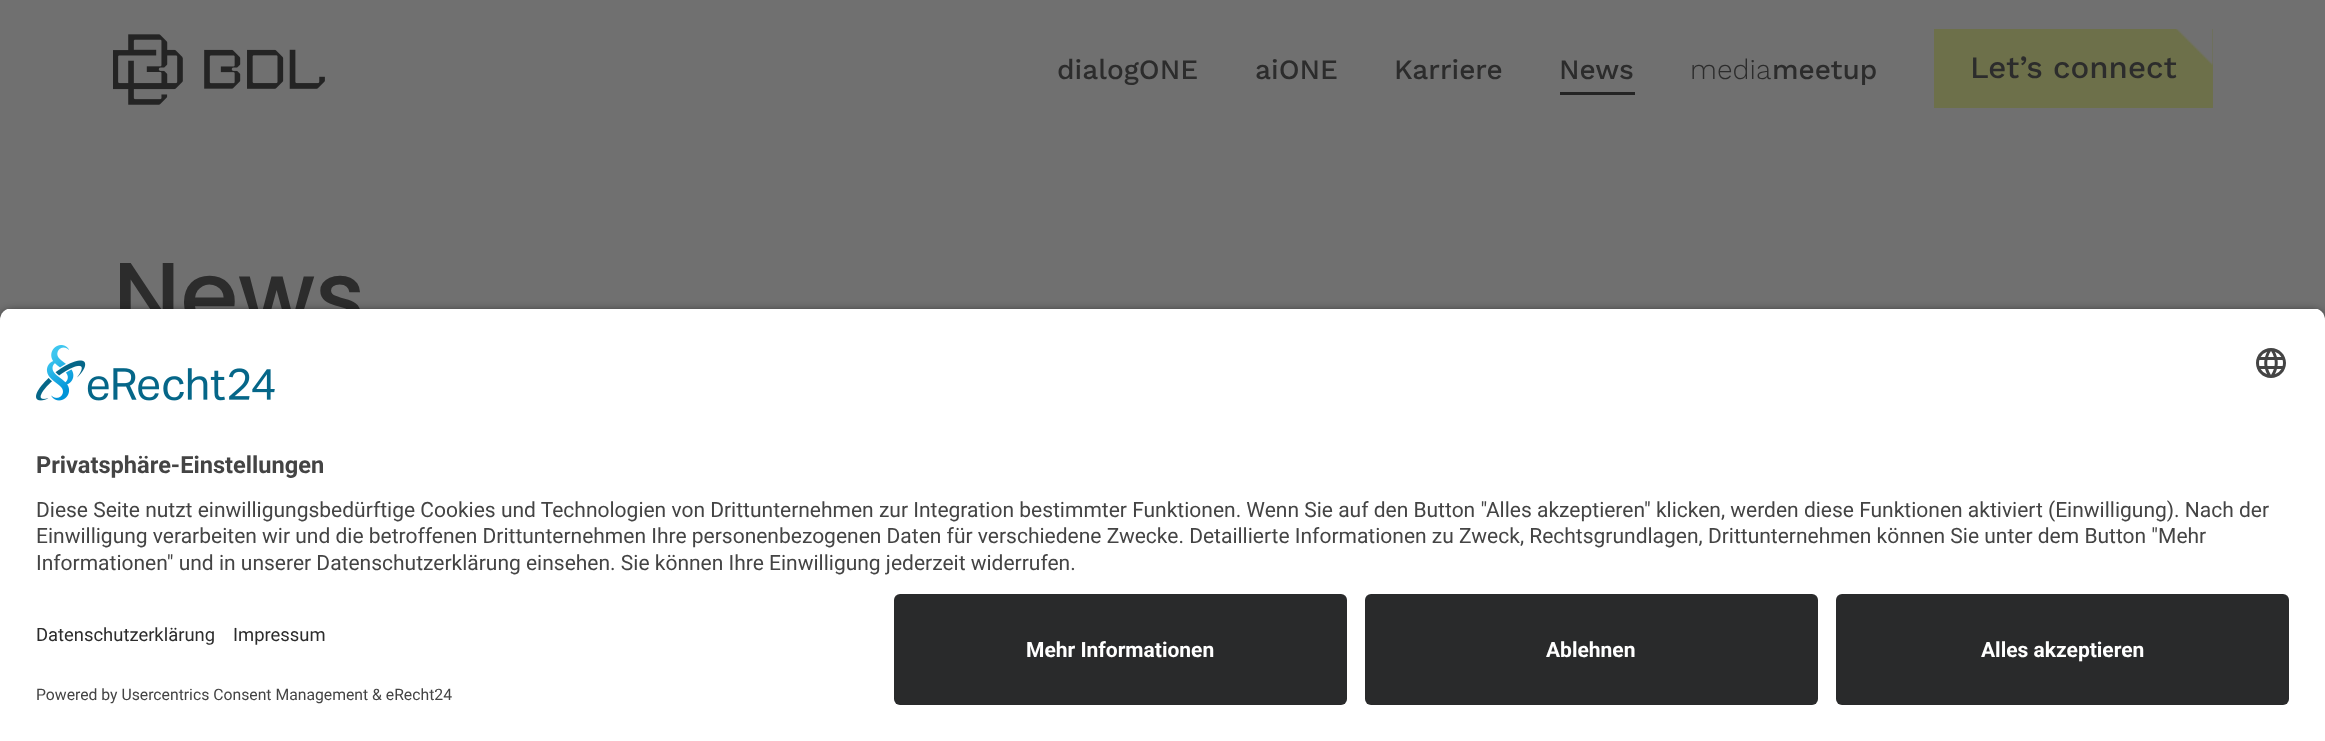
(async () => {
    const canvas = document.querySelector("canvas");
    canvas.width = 2325;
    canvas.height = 741;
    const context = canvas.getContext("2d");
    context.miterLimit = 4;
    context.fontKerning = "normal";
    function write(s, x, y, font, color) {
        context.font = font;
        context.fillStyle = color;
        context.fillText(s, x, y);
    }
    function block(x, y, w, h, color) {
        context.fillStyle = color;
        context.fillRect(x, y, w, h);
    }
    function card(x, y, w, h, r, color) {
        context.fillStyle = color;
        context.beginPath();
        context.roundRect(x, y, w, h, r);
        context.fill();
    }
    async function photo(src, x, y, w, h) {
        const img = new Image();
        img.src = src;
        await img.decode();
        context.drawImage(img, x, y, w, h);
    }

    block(0, 0, 2325, 741, "rgb(112, 112, 112)");
    await photo("media/1.png", 113, 34, 212, 71);
    write("dialogONE", 1057, 79, "500 28px Work Sans", "rgb(44, 44, 44)");
    write("aiONE", 1255, 79, "500 28px Work Sans", "rgb(44, 44, 44)");
    write("Karriere", 1394, 79, "500 28px Work Sans", "rgb(44, 44, 44)");
    block(1560, 92, 75, 3, "rgb(36, 36, 36)");
    write("News", 1559, 79, "500 28px Work Sans", "rgb(44, 44, 44)");
    write("media", 1690, 79, "300 28px Work Sans", "rgb(44, 44, 44)");
    write("meetup", 1772, 79, "500 28px Work Sans", "rgb(44, 44, 44)");
    block(1934, 29, 279, 79, "rgb(109, 112, 74)");
    await photo("media/2.png", 2176, 29, 37, 36);
    write("Let’s connect", 1970, 78, "500 31.25px Work Sans", "rgb(44, 44, 44)");
    write("News", 113, 328, "500 93.5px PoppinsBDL", "rgb(44, 44, 44)");
    context.fillStyle = "rgba(0, 0, 0, 0.8)";
    context.filter = "blur(5px)";
    context.beginPath();
    context.roundRect(0, 312, 2325, 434, 12);
    context.fill();
    context.filter = "none";
    context.save();
    context.beginPath();
    context.roundRect(0, 308, 2325, 274, [12, 12, 0, 0]);
    context.clip();
    block(0, 309, 2325, 273, "rgb(255, 255, 255)");
    context.restore();
    await photo("media/3.png", 36, 345, 239, 56);
    await photo("media/4.png", 2256, 348, 30, 30);
    write("Privatsphäre-Einstellungen", 36, 473, "bold 23.6px Roboto", "rgb(68, 68, 68)");
    write("Diese Seite nutzt einwilligungsbedürftige Cookies und Technologien von Drittunternehmen zur Integration bestimmter Funktionen. Wenn Sie auf den Button \"Alles akzeptieren\" klicken, werden diese Funktionen aktiviert (Einwilligung). Nach der", 36, 517, "21px Roboto", "rgb(68, 68, 68)");
    write("Einwilligung verarbeiten wir und die betroffenen Drittunternehmen Ihre personenbezogenen Daten für verschiedene Zwecke. Detaillierte Informationen zu Zweck, Rechtsgrundlagen, Drittunternehmen können Sie unter dem Button \"Mehr", 36, 543, "21px Roboto", "rgb(68, 68, 68)");
    write("Informationen\" und in unserer Datenschutzerklärung einsehen. Sie können Ihre Einwilligung jederzeit widerrufen.", 36, 570, "21px Roboto", "rgb(68, 68, 68)");
    block(0, 582, 2325, 159, "rgb(255, 255, 255)");
    write("Datenschutzerklärung", 36, 641, "18.4px Roboto", "rgb(44, 44, 44)");
    write("Impressum", 233, 641, "18.4px Roboto", "rgb(44, 44, 44)");
    write("Powered by Usercentrics Consent Management & eRecht24", 36, 700, "15.75px Roboto", "rgb(68, 68, 68)");
    card(894, 594, 453, 111, 6, "rgb(41, 42, 43)");
    write("Mehr Informationen", 1026, 657, "bold 21px Roboto", "rgb(255, 255, 255)");
    card(1365, 594, 453, 111, 6, "rgb(41, 42, 43)");
    write("Ablehnen", 1546, 657, "bold 21px Roboto", "rgb(255, 255, 255)");
    card(1836, 594, 453, 111, 6, "rgb(41, 42, 43)");
    write("Alles akzeptieren", 1981, 657, "bold 21px Roboto", "rgb(255, 255, 255)");
})();
